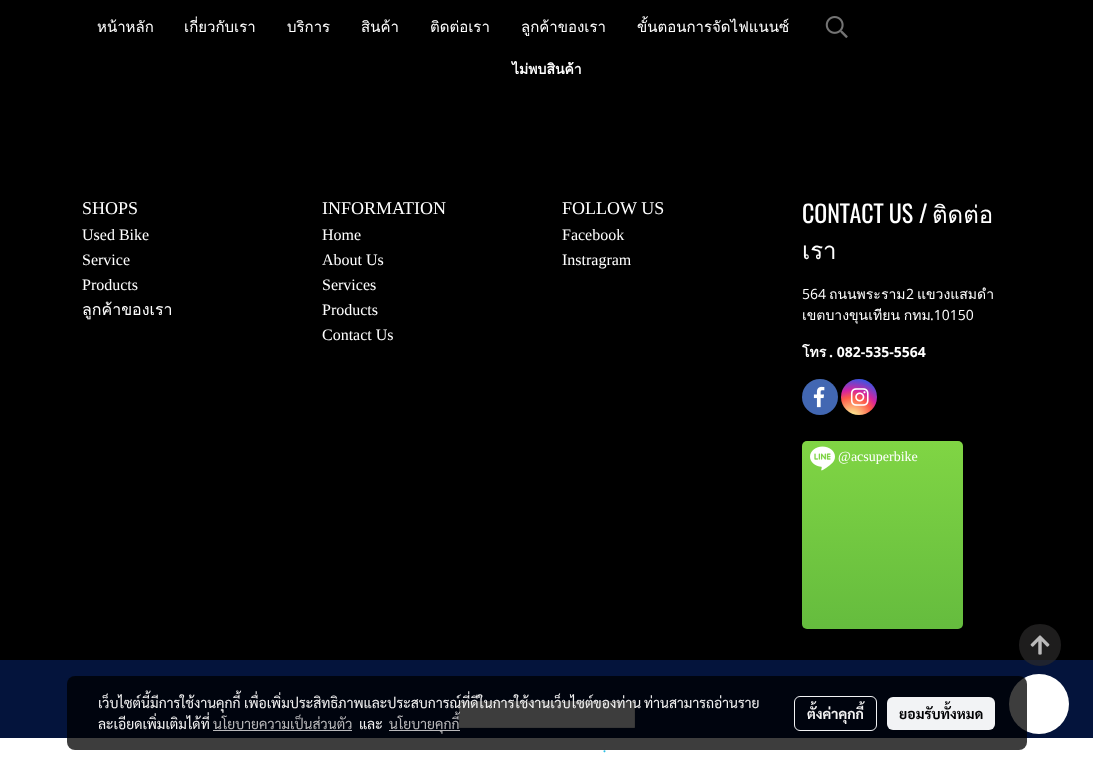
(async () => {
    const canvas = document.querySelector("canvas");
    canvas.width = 1093;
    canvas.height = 758;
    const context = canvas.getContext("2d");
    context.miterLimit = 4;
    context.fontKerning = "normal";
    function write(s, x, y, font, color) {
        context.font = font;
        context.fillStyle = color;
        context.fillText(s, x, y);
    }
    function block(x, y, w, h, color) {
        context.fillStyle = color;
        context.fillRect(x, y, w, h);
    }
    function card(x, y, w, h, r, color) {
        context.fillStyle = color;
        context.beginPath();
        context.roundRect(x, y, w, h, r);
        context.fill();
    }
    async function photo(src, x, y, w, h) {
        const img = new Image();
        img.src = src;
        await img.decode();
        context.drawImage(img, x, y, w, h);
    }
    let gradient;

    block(0, 0, 1093, 758, "rgb(0, 0, 0)");
    write("หน้าหลัก", 97, 32, "15px Loma", "rgb(255, 255, 255)");
    write("เกี่ยวกับเรา", 184, 32, "15px Loma", "rgb(255, 255, 255)");
    write("บริการ", 287, 32, "15px Loma", "rgb(255, 255, 255)");
    write("สินค้า", 361, 32, "15px Loma", "rgb(255, 255, 255)");
    write("ติดต่อเรา", 430, 32, "15px Loma", "rgb(255, 255, 255)");
    write("ลูกค้าของเรา", 521, 32, "15px Loma", "rgb(255, 255, 255)");
    write("ขั้นตอนการจัดไฟแนนซ์", 637, 32, "15px Loma", "rgb(255, 255, 255)");
    await photo("media/1.png", 825, 16, 23, 22);
    write("ไม่พบสินค้า", 512, 74, "bold 14px Loma", "rgb(255, 255, 255)");
    write("SHOPS", 82, 214, "18px Liberation Serif", "rgb(255, 255, 255)");
    write("Used Bike", 82, 240, "16px Liberation Serif", "rgb(255, 255, 255)");
    write("Service", 82, 265, "16px Liberation Serif", "rgb(255, 255, 255)");
    write("Products", 82, 290, "16px Liberation Serif", "rgb(255, 255, 255)");
    write("ลูกค้าของเรา", 82, 315, "16px Loma", "rgb(255, 255, 255)");
    write("INFORMATION", 322, 214, "18px Liberation Serif", "rgb(255, 255, 255)");
    write("Home", 322, 240, "16px Liberation Serif", "rgb(255, 255, 255)");
    write("About Us", 322, 265, "16px Liberation Serif", "rgb(255, 255, 255)");
    write("Services", 322, 290, "16px Liberation Serif", "rgb(255, 255, 255)");
    write("Products", 322, 315, "16px Liberation Serif", "rgb(255, 255, 255)");
    write("Contact Us", 322, 340, "16px Liberation Serif", "rgb(255, 255, 255)");
    write("FOLLOW US", 562, 214, "18px Liberation Serif", "rgb(255, 255, 255)");
    write("Facebook", 562, 240, "16px Liberation Serif", "rgb(255, 255, 255)");
    write("Instragram", 562, 265, "16px Liberation Serif", "rgb(255, 255, 255)");
    write("CONTACT US /", 802, 223, "24px Oswald", "rgb(255, 255, 255)");
    write("ติดต่อ", 932, 223, "24px Loma", "rgb(255, 255, 255)");
    write("เรา", 802, 259, "24px Loma", "rgb(255, 255, 255)");
    write("564", 802, 299, "14px Open Sans", "rgb(255, 255, 255)");
    write("ถนนพระราม", 829, 299, "14px Loma", "rgb(255, 255, 255)");
    write("2", 906, 299, "14px Open Sans", "rgb(255, 255, 255)");
    write("แขวงแสมดำ", 917, 299, "14px Loma", "rgb(255, 255, 255)");
    context.wordSpacing = "-1px";
    write("เขตบางขุนเทียน กทม", 802, 320, "14px Loma", "rgb(255, 255, 255)");
    context.wordSpacing = "0px";
    write(".10150", 930, 320, "14px Open Sans", "rgb(255, 255, 255)");
    write("โทร", 802, 357, "bold 14px Loma", "rgb(255, 255, 255)");
    write(". 082-535-5564", 829, 357, "bold 14px Open Sans", "rgb(255, 255, 255)");
    context.fillStyle = "rgb(66, 103, 178)";
    context.beginPath();
    context.arc(820, 397, 18, 0, Math.PI * 2);
    context.fill();
    await photo("media/2.png", 813, 386, 12, 22);
    gradient = context.createRadialGradient(852, 418, 0, 852, 418, 46);
    gradient.addColorStop(0, "rgb(253, 244, 151)");
    gradient.addColorStop(0.05, "rgb(253, 244, 151)");
    gradient.addColorStop(0.45, "rgb(253, 89, 73)");
    gradient.addColorStop(0.6, "rgb(214, 36, 159)");
    gradient.addColorStop(0.9, "rgb(40, 90, 235)");
    context.fillStyle = gradient;
    context.beginPath();
    context.arc(859, 397, 18, 0, Math.PI * 2);
    context.fill();
    await photo("media/3.png", 850, 388, 19, 18);
    gradient = context.createLinearGradient(883, 441, 883, 629);
    gradient.addColorStop(0, "rgb(128, 213, 68)");
    gradient.addColorStop(1, "rgb(101, 188, 62)");
    context.fillStyle = gradient;
    context.beginPath();
    context.roundRect(802, 441, 161, 188, 5);
    context.fill();
    await photo("media/4.png", 810, 446, 25, 25);
    write("@acsuperbike", 838, 461, "14px Liberation Serif", "rgb(255, 255, 255)");
    block(0, 660, 1093, 78, "rgb(4, 20, 60)");
    context.fillStyle = "rgb(255, 255, 255)";
    context.beginPath();
    context.rect(459.5, 701.5, 175, 26);
    context.fill();
    context.strokeStyle = "rgb(229, 229, 229)";
    context.stroke();
    block(0, 738, 1093, 20, "rgb(255, 255, 255)");
    write(".", 603, 752, "bold 12px Liberation Serif", "rgb(40, 190, 227)");
    context.fillStyle = "rgba(43, 42, 42, 0.7)";
    context.beginPath();
    context.moveTo(1040, 624);
    context.bezierCurveTo(1012, 624, 1012, 666, 1040, 666);
    context.bezierCurveTo(1068, 666, 1068, 624, 1040, 624);
    context.closePath();
    context.fill();
    await photo("media/5.png", 1030, 635, 20, 20);
    context.fillStyle = "rgb(255, 255, 255)";
    context.beginPath();
    context.arc(1039, 704, 30, 0, Math.PI * 2);
    context.fill();
    card(67, 676, 960, 74, 8, "rgba(0, 0, 0, 0.76)");
    write("เว็บไซต์นี้มีการใช้งานคุกกี้ เพื่อเพิ่มประสิทธิภาพและประสบการณ์ที่ดีในการใช้งานเว็บไซต์ของท่าน", 98, 708, "14px Sarabun", "rgb(243, 243, 243)");
    write("ท่านสามารถอ่านราย", 644, 708, "14px Sarabun", "rgb(243, 243, 243)");
    write("ละเอียดเพิ่มเติมได้ที่", 98, 729, "14px Sarabun", "rgb(243, 243, 243)");
    write("นโยบายความเป็นส่วนตัว", 213, 729, "14px Sarabun", "rgb(185, 185, 187)");
    block(213, 730, 139, 1, "rgb(185, 185, 187)");
    write("และ", 359, 729, "14px Sarabun", "rgb(243, 243, 243)");
    block(389, 730, 71, 1, "rgb(185, 185, 187)");
    write("นโยบายคุกกี้", 389, 729, "14px Sarabun", "rgb(185, 185, 187)");
    context.beginPath();
    context.roundRect(794.5, 696.5, 82, 34, 5.5);
    context.strokeStyle = "rgb(242, 243, 245)";
    context.stroke();
    write("ตั้งค่าคุกกี้", 807, 719, "bold 14px Sarabun", "rgb(243, 243, 243)");
    card(887, 697, 108, 33, 6, "rgb(242, 243, 245)");
    write("ยอมรับทั้งหมด", 899, 719, "bold 14px Sarabun", "rgb(0, 1, 3)");
})();
